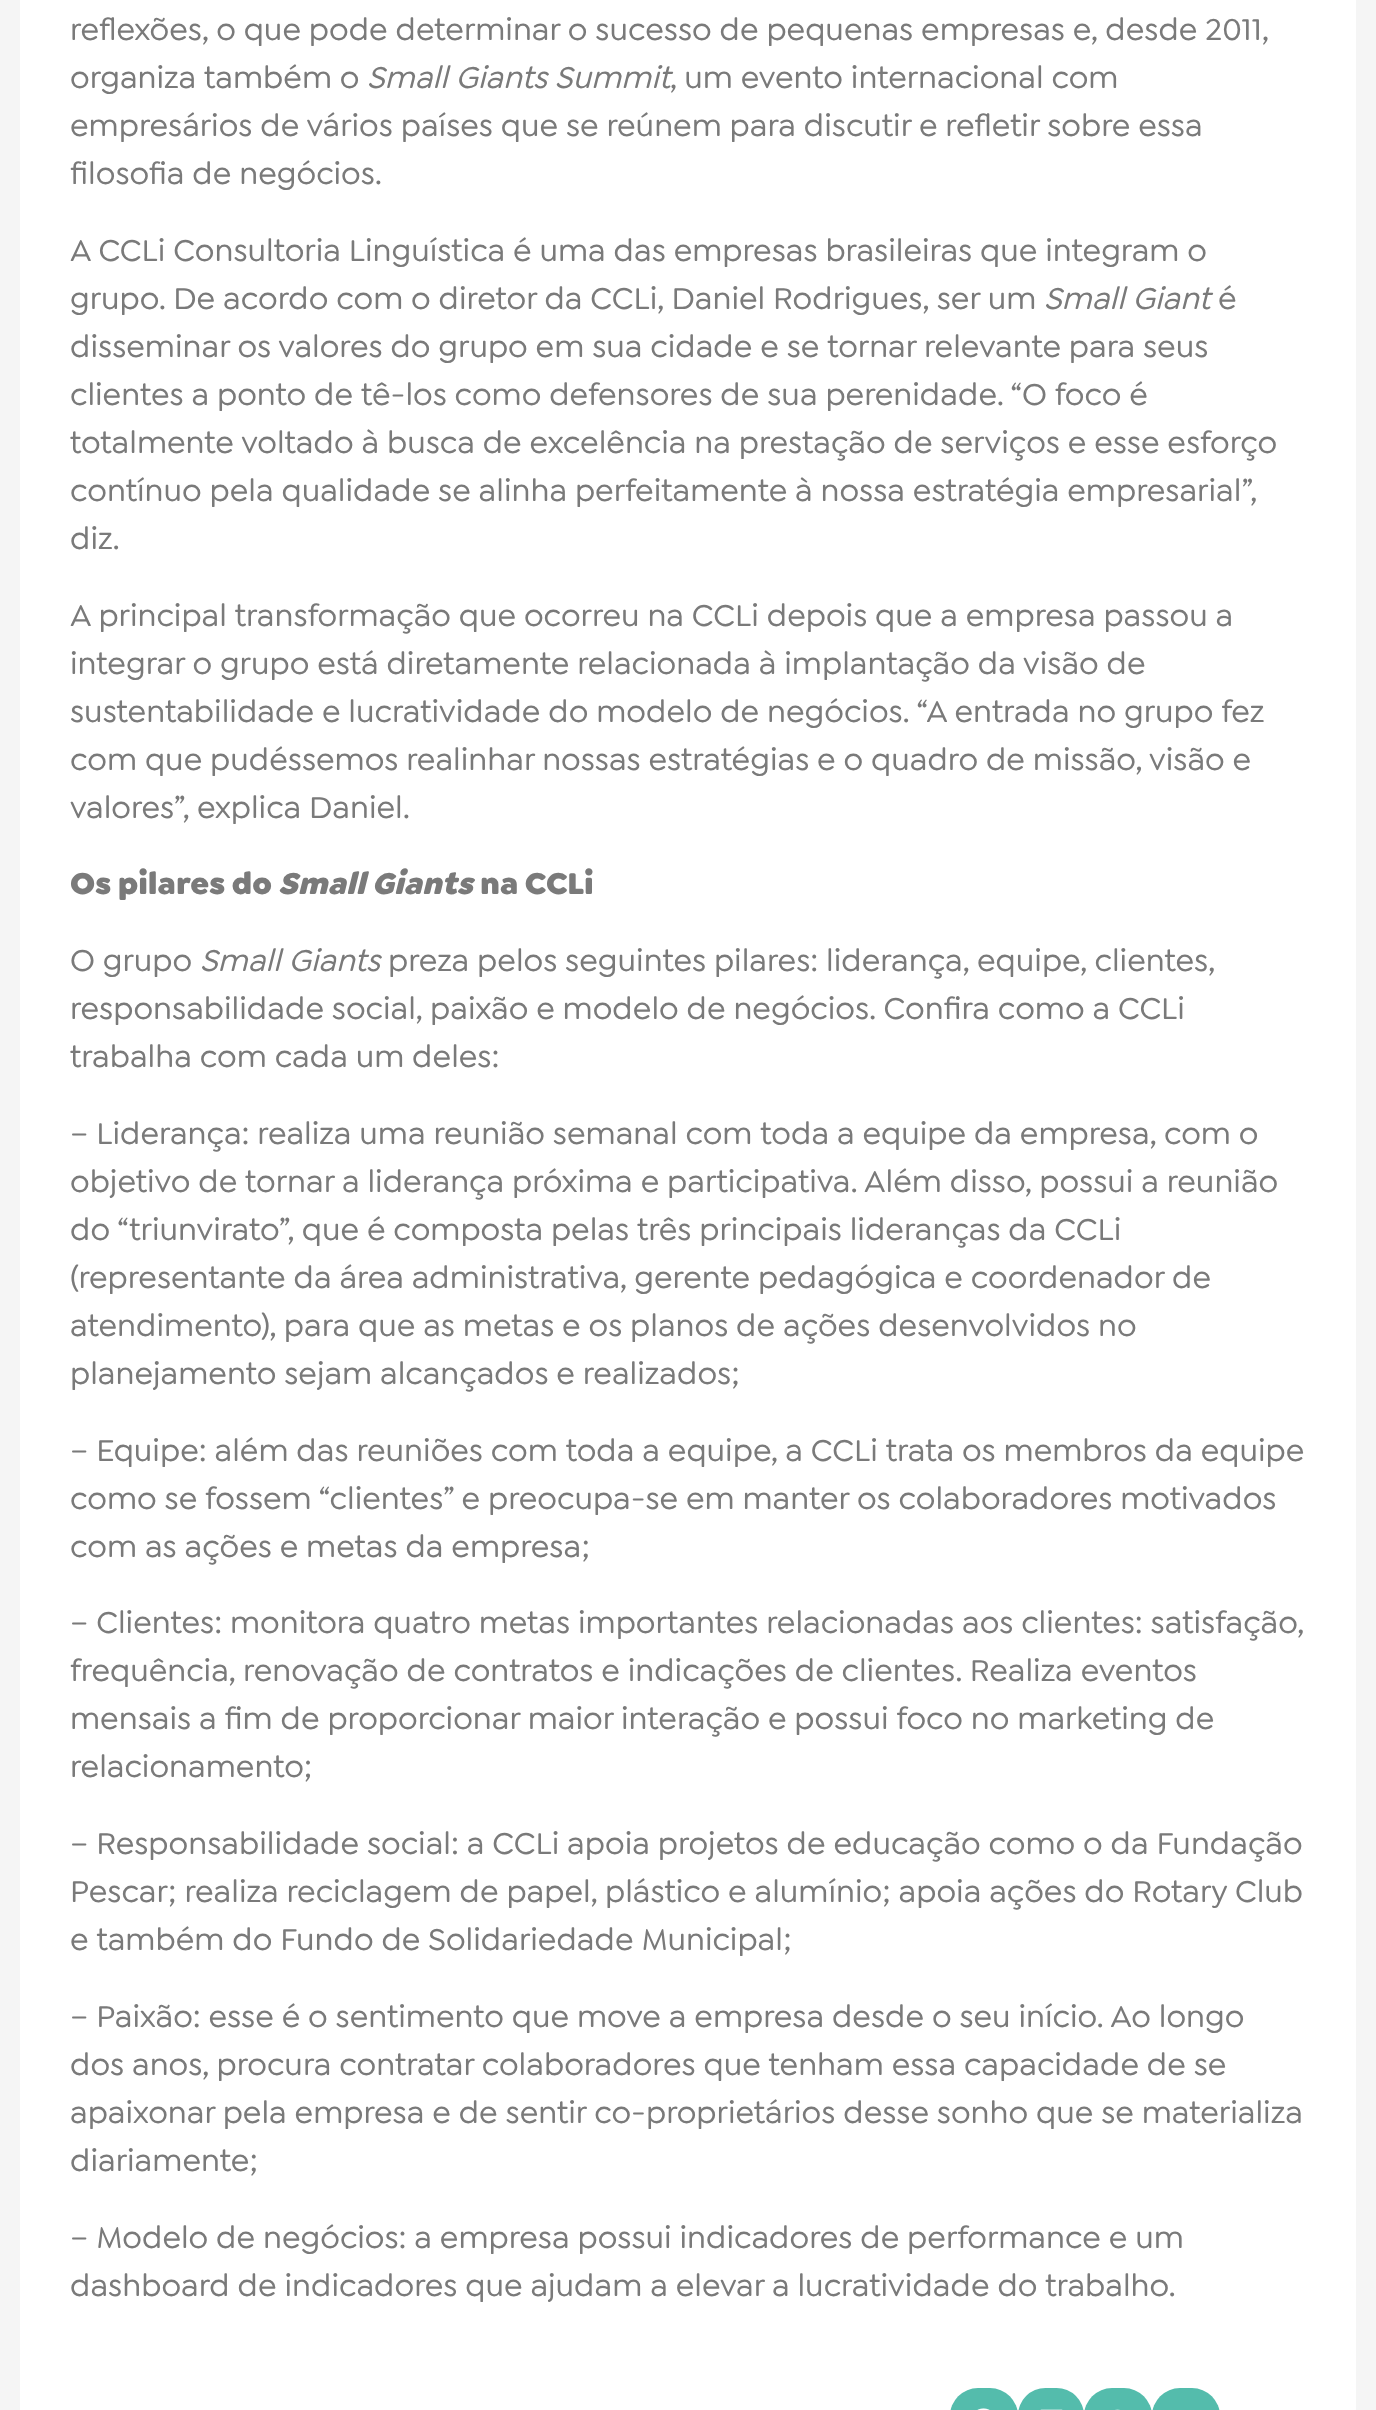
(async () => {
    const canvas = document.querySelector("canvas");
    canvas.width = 1376;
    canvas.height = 2410;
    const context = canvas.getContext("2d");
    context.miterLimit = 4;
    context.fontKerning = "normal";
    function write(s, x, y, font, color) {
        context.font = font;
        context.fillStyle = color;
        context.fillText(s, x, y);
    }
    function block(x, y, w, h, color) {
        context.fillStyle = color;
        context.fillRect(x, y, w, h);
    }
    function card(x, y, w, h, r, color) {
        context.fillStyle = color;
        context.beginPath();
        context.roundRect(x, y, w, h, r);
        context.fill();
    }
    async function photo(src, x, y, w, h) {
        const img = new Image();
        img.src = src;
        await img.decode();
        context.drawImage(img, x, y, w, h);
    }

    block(0, 0, 1376, 2410, "rgb(245, 245, 245)");
    block(20, 0, 1336, 2410, "rgb(255, 255, 255)");
    write("reflexões, o que pode determinar o sucesso de pequenas empresas e, desde 2011,", 70, 40, "500 32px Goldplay", "rgb(122, 122, 122)");
    write("organiza também o", 70, 88, "500 32px Goldplay", "rgb(122, 122, 122)");
    write("Small Giants Summit", 367, 88, "italic 500 32px Goldplay", "rgb(122, 122, 122)");
    write(", um evento internacional com", 670, 88, "500 32px Goldplay", "rgb(122, 122, 122)");
    write("empresários de vários países que se reúnem para discutir e refletir sobre essa", 70, 136, "500 32px Goldplay", "rgb(122, 122, 122)");
    write("filosofia de negócios.", 70, 184, "500 32px Goldplay", "rgb(122, 122, 122)");
    write("A CCLi Consultoria Linguística é uma das empresas brasileiras que integram o", 70, 261, "500 32px Goldplay", "rgb(122, 122, 122)");
    write("grupo. De acordo com o diretor da CCLi, Daniel Rodrigues, ser um", 70, 309, "500 32px Goldplay", "rgb(122, 122, 122)");
    write("Small Giant", 1044, 309, "italic 500 32px Goldplay", "rgb(122, 122, 122)");
    write("é", 1218, 309, "500 32px Goldplay", "rgb(122, 122, 122)");
    write("disseminar os valores do grupo em sua cidade e se tornar relevante para seus", 70, 357, "500 32px Goldplay", "rgb(122, 122, 122)");
    write("clientes a ponto de tê-los como defensores de sua perenidade. “O foco é", 70, 405, "500 32px Goldplay", "rgb(122, 122, 122)");
    write("totalmente voltado à busca de excelência na prestação de serviços e esse esforço", 70, 453, "500 32px Goldplay", "rgb(122, 122, 122)");
    write("contínuo pela qualidade se alinha perfeitamente à nossa estratégia empresarial”,", 70, 501, "500 32px Goldplay", "rgb(122, 122, 122)");
    write("diz.", 70, 549, "500 32px Goldplay", "rgb(122, 122, 122)");
    write("A principal transformação que ocorreu na CCLi depois que a empresa passou a", 70, 626, "500 32px Goldplay", "rgb(122, 122, 122)");
    write("integrar o grupo está diretamente relacionada à implantação da visão de", 70, 674, "500 32px Goldplay", "rgb(122, 122, 122)");
    write("sustentabilidade e lucratividade do modelo de negócios. “A entrada no grupo fez", 70, 722, "500 32px Goldplay", "rgb(122, 122, 122)");
    write("com que pudéssemos realinhar nossas estratégias e o quadro de missão, visão e", 70, 770, "500 32px Goldplay", "rgb(122, 122, 122)");
    write("valores”, explica Daniel.", 70, 818, "500 32px Goldplay", "rgb(122, 122, 122)");
    write("Os pilares do", 70, 894, "900 32px Goldplay", "rgb(122, 122, 122)");
    write("Small Giants", 278, 894, "italic 900 32px Goldplay", "rgb(122, 122, 122)");
    write("na CCLi", 480, 894, "900 32px Goldplay", "rgb(122, 122, 122)");
    write("O grupo", 70, 971, "500 32px Goldplay", "rgb(122, 122, 122)");
    write("Small Giants", 200, 971, "italic 500 32px Goldplay", "rgb(122, 122, 122)");
    write("preza pelos seguintes pilares: liderança, equipe, clientes,", 388, 971, "500 32px Goldplay", "rgb(122, 122, 122)");
    write("responsabilidade social, paixão e modelo de negócios. Confira como a CCLi", 70, 1019, "500 32px Goldplay", "rgb(122, 122, 122)");
    write("trabalha com cada um deles:", 70, 1067, "500 32px Goldplay", "rgb(122, 122, 122)");
    write("– Liderança: realiza uma reunião semanal com toda a equipe da empresa, com o", 70, 1144, "500 32px Goldplay", "rgb(122, 122, 122)");
    write("objetivo de tornar a liderança próxima e participativa. Além disso, possui a reunião", 70, 1192, "500 32px Goldplay", "rgb(122, 122, 122)");
    write("do “triunvirato”, que é composta pelas três principais lideranças da CCLi", 70, 1240, "500 32px Goldplay", "rgb(122, 122, 122)");
    write("(representante da área administrativa, gerente pedagógica e coordenador de", 70, 1288, "500 32px Goldplay", "rgb(122, 122, 122)");
    write("atendimento), para que as metas e os planos de ações desenvolvidos no", 70, 1336, "500 32px Goldplay", "rgb(122, 122, 122)");
    write("planejamento sejam alcançados e realizados;", 70, 1384, "500 32px Goldplay", "rgb(122, 122, 122)");
    write("– Equipe: além das reuniões com toda a equipe, a CCLi trata os membros da equipe", 70, 1461, "500 32px Goldplay", "rgb(122, 122, 122)");
    write("como se fossem “clientes” e preocupa-se em manter os colaboradores motivados", 70, 1509, "500 32px Goldplay", "rgb(122, 122, 122)");
    write("com as ações e metas da empresa;", 70, 1557, "500 32px Goldplay", "rgb(122, 122, 122)");
    write("– Clientes: monitora quatro metas importantes relacionadas aos clientes: satisfação,", 70, 1633, "500 32px Goldplay", "rgb(122, 122, 122)");
    write("frequência, renovação de contratos e indicações de clientes. Realiza eventos", 70, 1681, "500 32px Goldplay", "rgb(122, 122, 122)");
    write("mensais a fim de proporcionar maior interação e possui foco no marketing de", 70, 1729, "500 32px Goldplay", "rgb(122, 122, 122)");
    write("relacionamento;", 70, 1777, "500 32px Goldplay", "rgb(122, 122, 122)");
    write("– Responsabilidade social: a CCLi apoia projetos de educação como o da Fundação", 70, 1854, "500 32px Goldplay", "rgb(122, 122, 122)");
    write("Pescar; realiza reciclagem de papel, plástico e alumínio; apoia ações do Rotary Club", 70, 1902, "500 32px Goldplay", "rgb(122, 122, 122)");
    write("e também do Fundo de Solidariedade Municipal;", 70, 1950, "500 32px Goldplay", "rgb(122, 122, 122)");
    write("– Paixão: esse é o sentimento que move a empresa desde o seu início. Ao longo", 70, 2027, "500 32px Goldplay", "rgb(122, 122, 122)");
    write("dos anos, procura contratar colaboradores que tenham essa capacidade de se", 70, 2075, "500 32px Goldplay", "rgb(122, 122, 122)");
    write("apaixonar pela empresa e de sentir co-proprietários desse sonho que se materializa", 70, 2123, "500 32px Goldplay", "rgb(122, 122, 122)");
    write("diariamente;", 70, 2171, "500 32px Goldplay", "rgb(122, 122, 122)");
    write("– Modelo de negócios: a empresa possui indicadores de performance e um", 70, 2248, "500 32px Goldplay", "rgb(122, 122, 122)");
    write("dashboard de indicadores que ajudam a elevar a lucratividade do trabalho.", 70, 2296, "500 32px Goldplay", "rgb(122, 122, 122)");
    card(950, 2388, 68, 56, 34, "rgb(84, 188, 172)");
    await photo("media/1.png", 977, 2408, 13, 2);
    card(1018, 2388, 66, 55, 33, "rgb(84, 188, 172)");
    await photo("media/2.png", 1040, 2409, 23, 1);
    card(1084, 2388, 68, 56, 34, "rgb(84, 188, 172)");
    await photo("media/3.png", 1115, 2409, 5, 1);
    card(1152, 2388, 68, 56, 34, "rgb(84, 188, 172)");
})();
